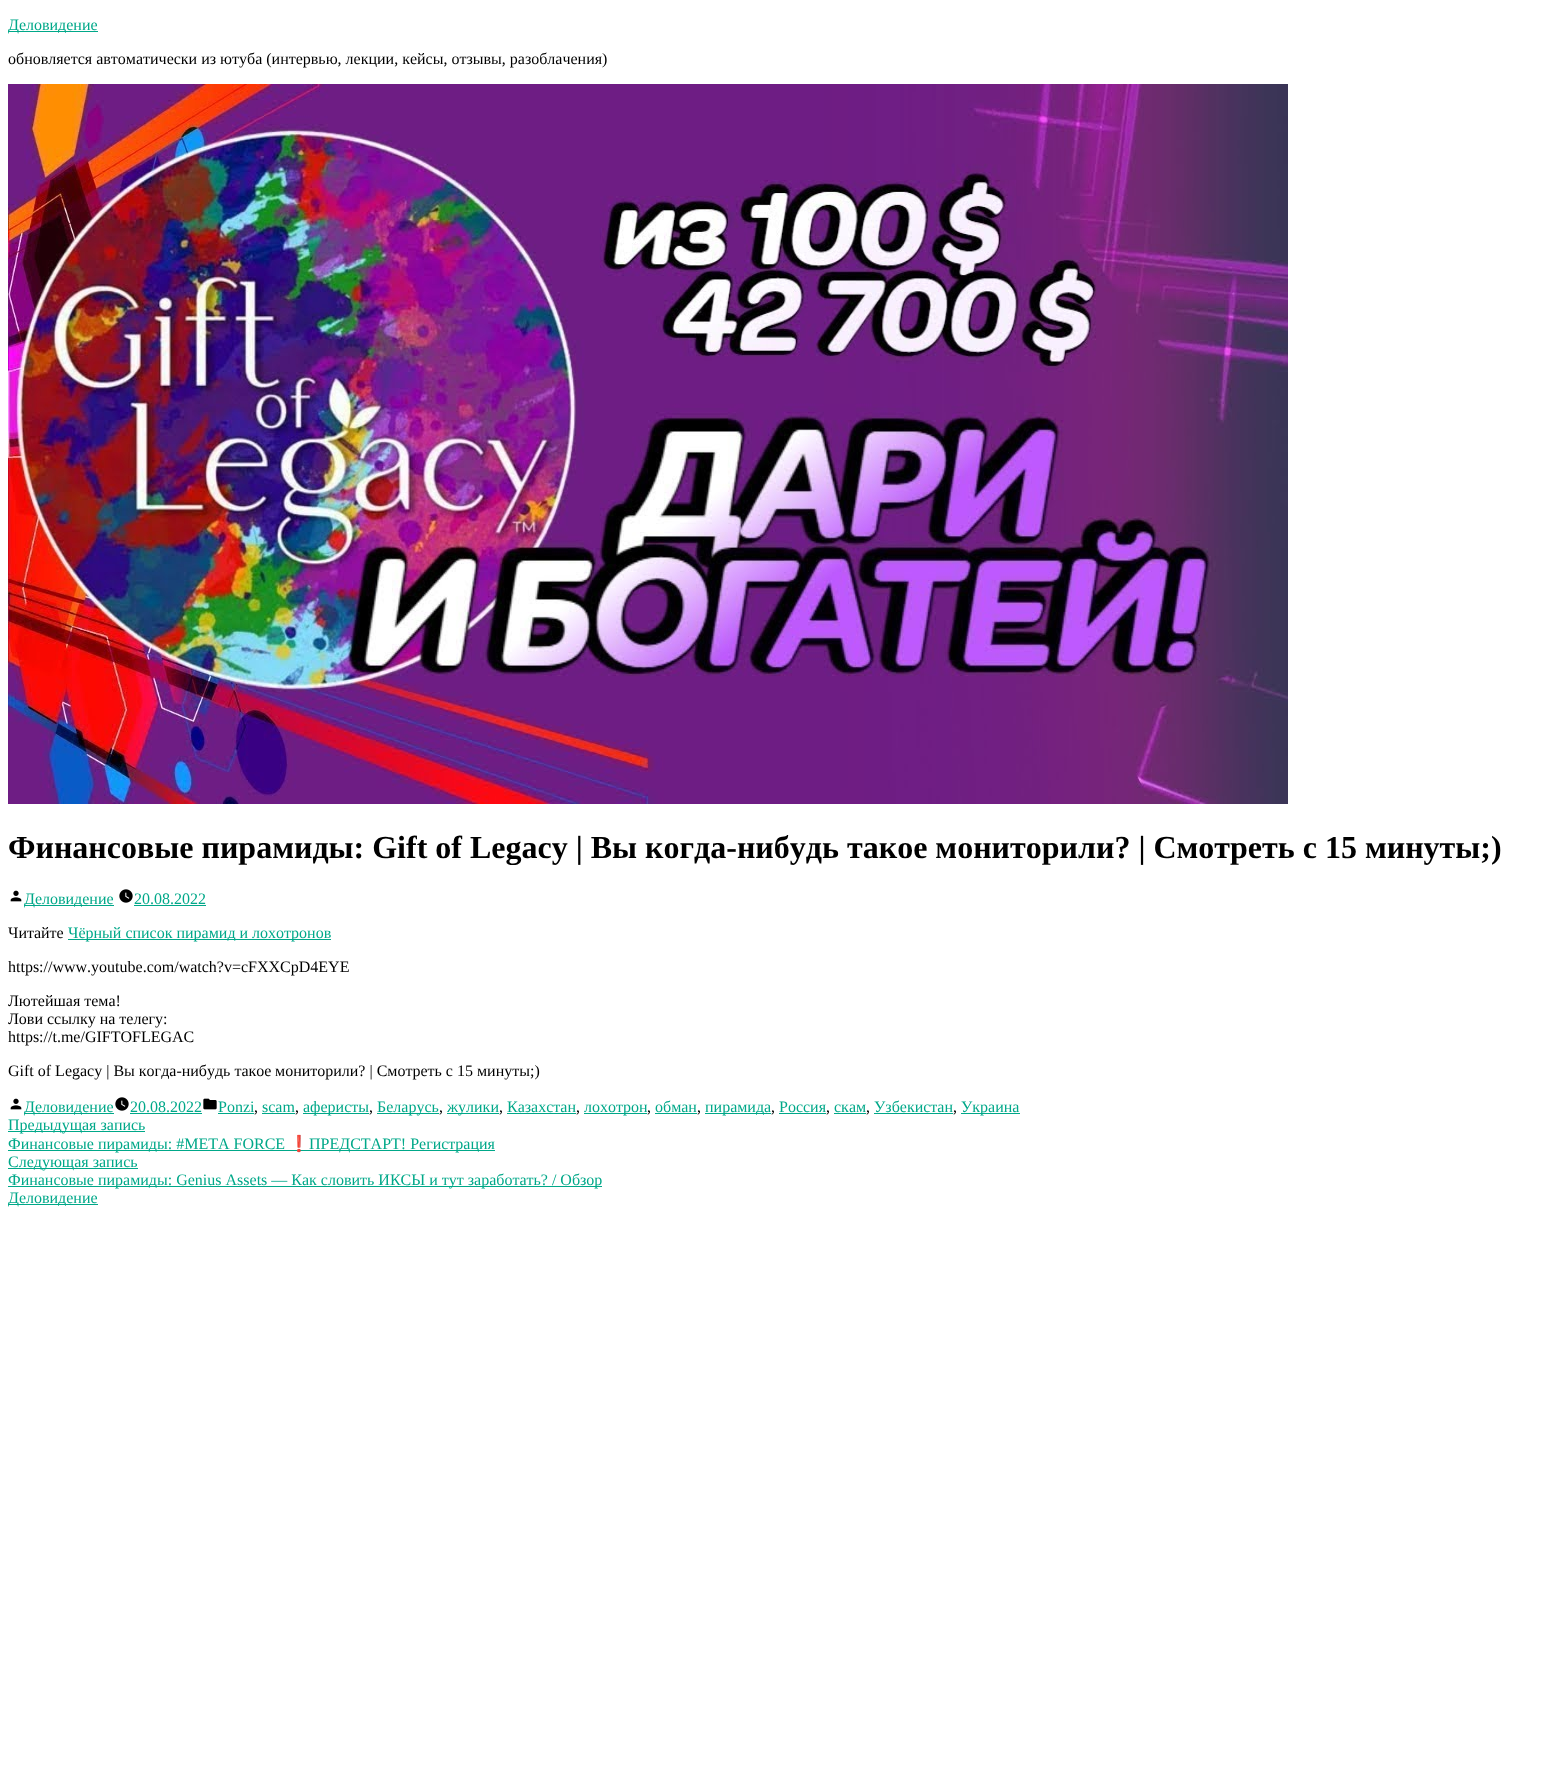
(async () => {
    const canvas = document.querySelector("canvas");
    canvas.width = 1560;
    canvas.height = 1769;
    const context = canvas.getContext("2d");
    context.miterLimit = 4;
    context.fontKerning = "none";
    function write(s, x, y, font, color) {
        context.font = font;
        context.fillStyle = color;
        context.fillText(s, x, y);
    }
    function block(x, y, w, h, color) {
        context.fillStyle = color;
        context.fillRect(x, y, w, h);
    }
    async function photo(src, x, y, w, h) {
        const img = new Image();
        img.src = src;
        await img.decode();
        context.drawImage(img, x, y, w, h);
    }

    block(0, 0, 1560, 1769, "rgb(255, 255, 255)");
    block(8, 31, 90, 1, "rgb(0, 168, 137)");
    write("Деловидение", 8, 30, "16px Liberation Serif", "rgb(0, 168, 137)");
    write("обновляется автоматически из ютуба (интервью, лекции, кейсы, отзывы, разоблачения)", 8, 64, "16px Liberation Serif", "rgb(0, 0, 0)");
    await photo("media/1.png", 8, 84, 1280, 720);
    write("Финансовые пирамиды: Gift of Legacy | Вы когда-нибудь", 8, 858, "bold 32px Liberation Serif", "rgb(0, 0, 0)");
    write("такое мониторили? | Смотреть с 15 минуты;)", 847, 858, "bold 32px Liberation Serif", "rgb(0, 0, 0)");
    await photo("media/2.png", 10, 890, 12, 12);
    block(24, 905, 90, 1, "rgb(0, 168, 137)");
    write("Деловидение", 24, 904, "16px Liberation Serif", "rgb(0, 168, 137)");
    await photo("media/3.png", 119, 889, 14, 14);
    write("20.08.2022", 134, 904, "16px Liberation Serif", "rgb(0, 168, 137)");
    block(134, 905, 72, 1, "rgb(0, 168, 137)");
    write("Читайте", 8, 938, "16px Liberation Serif", "rgb(0, 0, 0)");
    block(68, 939, 263, 1, "rgb(0, 168, 137)");
    write("Чёрный список пирамид и лохотронов", 68, 938, "16px Liberation Serif", "rgb(0, 168, 137)");
    write("https://www.youtube.com/watch?v=cFXXCpD4EYE", 8, 972, "16px Liberation Serif", "rgb(0, 0, 0)");
    write("Лютейшая тема!", 8, 1006, "16px Liberation Serif", "rgb(0, 0, 0)");
    write("Лови ссылку на телегу:", 8, 1024, "16px Liberation Serif", "rgb(0, 0, 0)");
    write("https://t.me/GIFTOFLEGAC", 8, 1042, "16px Liberation Serif", "rgb(0, 0, 0)");
    write("Gift of Legacy | Вы когда-нибудь такое", 8, 1076, "16px Liberation Serif", "rgb(0, 0, 0)");
    write("мониторили? | Смотреть с 15 минуты;)", 275, 1076, "16px Liberation Serif", "rgb(0, 0, 0)");
    await photo("media/2.png", 10, 1098, 12, 12);
    block(24, 1113, 90, 1, "rgb(0, 168, 137)");
    write("Деловидение", 24, 1112, "16px Liberation Serif", "rgb(0, 168, 137)");
    await photo("media/3.png", 115, 1097, 14, 14);
    write("20.08.2022", 130, 1112, "16px Liberation Serif", "rgb(0, 168, 137)");
    block(130, 1113, 72, 1, "rgb(0, 168, 137)");
    await photo("media/4.png", 203, 1098, 14, 12);
    write("Ponzi", 218, 1112, "16px Liberation Serif", "rgb(0, 168, 137)");
    write(",", 254, 1112, "16px Liberation Serif", "rgb(0, 0, 0)");
    block(218, 1113, 36, 1, "rgb(0, 168, 137)");
    write("scam", 262, 1112, "16px Liberation Serif", "rgb(0, 168, 137)");
    write(",", 295, 1112, "16px Liberation Serif", "rgb(0, 0, 0)");
    block(262, 1113, 33, 1, "rgb(0, 168, 137)");
    block(303, 1113, 66, 1, "rgb(0, 168, 137)");
    write("аферисты", 303, 1112, "16px Liberation Serif", "rgb(0, 168, 137)");
    write(",", 369, 1112, "16px Liberation Serif", "rgb(0, 0, 0)");
    block(377, 1113, 62, 1, "rgb(0, 168, 137)");
    write("Беларусь", 377, 1112, "16px Liberation Serif", "rgb(0, 168, 137)");
    write(",", 439, 1112, "16px Liberation Serif", "rgb(0, 0, 0)");
    block(447, 1113, 52, 1, "rgb(0, 168, 137)");
    write("жулики", 447, 1112, "16px Liberation Serif", "rgb(0, 168, 137)");
    write(",", 499, 1112, "16px Liberation Serif", "rgb(0, 0, 0)");
    write("Казахстан", 507, 1112, "16px Liberation Serif", "rgb(0, 168, 137)");
    write(",", 576, 1112, "16px Liberation Serif", "rgb(0, 0, 0)");
    block(507, 1113, 69, 1, "rgb(0, 168, 137)");
    block(584, 1113, 63, 1, "rgb(0, 168, 137)");
    write("лохотрон", 584, 1112, "16px Liberation Serif", "rgb(0, 168, 137)");
    write(",", 647, 1112, "16px Liberation Serif", "rgb(0, 0, 0)");
    write("обман", 655, 1112, "16px Liberation Serif", "rgb(0, 168, 137)");
    write(",", 697, 1112, "16px Liberation Serif", "rgb(0, 0, 0)");
    block(655, 1113, 42, 1, "rgb(0, 168, 137)");
    block(705, 1113, 66, 1, "rgb(0, 168, 137)");
    write("пирамида", 705, 1112, "16px Liberation Serif", "rgb(0, 168, 137)");
    write(",", 771, 1112, "16px Liberation Serif", "rgb(0, 0, 0)");
    write("Россия", 779, 1112, "16px Liberation Serif", "rgb(0, 168, 137)");
    write(",", 826, 1112, "16px Liberation Serif", "rgb(0, 0, 0)");
    block(779, 1113, 47, 1, "rgb(0, 168, 137)");
    write("скам", 834, 1112, "16px Liberation Serif", "rgb(0, 168, 137)");
    write(",", 866, 1112, "16px Liberation Serif", "rgb(0, 0, 0)");
    block(834, 1113, 32, 1, "rgb(0, 168, 137)");
    write("Узбекистан", 874, 1112, "16px Liberation Serif", "rgb(0, 168, 137)");
    write(",", 953, 1112, "16px Liberation Serif", "rgb(0, 0, 0)");
    block(874, 1113, 79, 1, "rgb(0, 168, 137)");
    block(961, 1113, 59, 1, "rgb(0, 168, 137)");
    write("Украина", 961, 1112, "16px Liberation Serif", "rgb(0, 168, 137)");
    block(8, 1131, 137, 1, "rgb(0, 168, 137)");
    write("Предыдущая запись", 8, 1130, "16px Liberation Serif", "rgb(0, 168, 137)");
    block(8, 1150, 487, 1, "rgb(0, 168, 137)");
    write("Финансовые пирамиды: #META FORCE", 8, 1149, "16px Liberation Serif", "rgb(0, 168, 137)");
    write("❗", 289, 1149, "16px Noto Color Emoji", "rgb(0, 168, 137)");
    write("ПРЕДСТАРТ! Регистрация", 309, 1149, "16px Liberation Serif", "rgb(0, 168, 137)");
    block(8, 1168, 130, 1, "rgb(0, 168, 137)");
    write("Следующая запись", 8, 1167, "16px Liberation Serif", "rgb(0, 168, 137)");
    block(8, 1186, 594, 1, "rgb(0, 168, 137)");
    write("Финансовые пирамиды: Genius Assets — Как словить ИКСЫ и тут заработать? / Обзор", 8, 1185, "16px Liberation Serif", "rgb(0, 168, 137)");
    block(8, 1204, 90, 1, "rgb(0, 168, 137)");
    write("Деловидение", 8, 1203, "16px Liberation Serif", "rgb(0, 168, 137)");
})();
